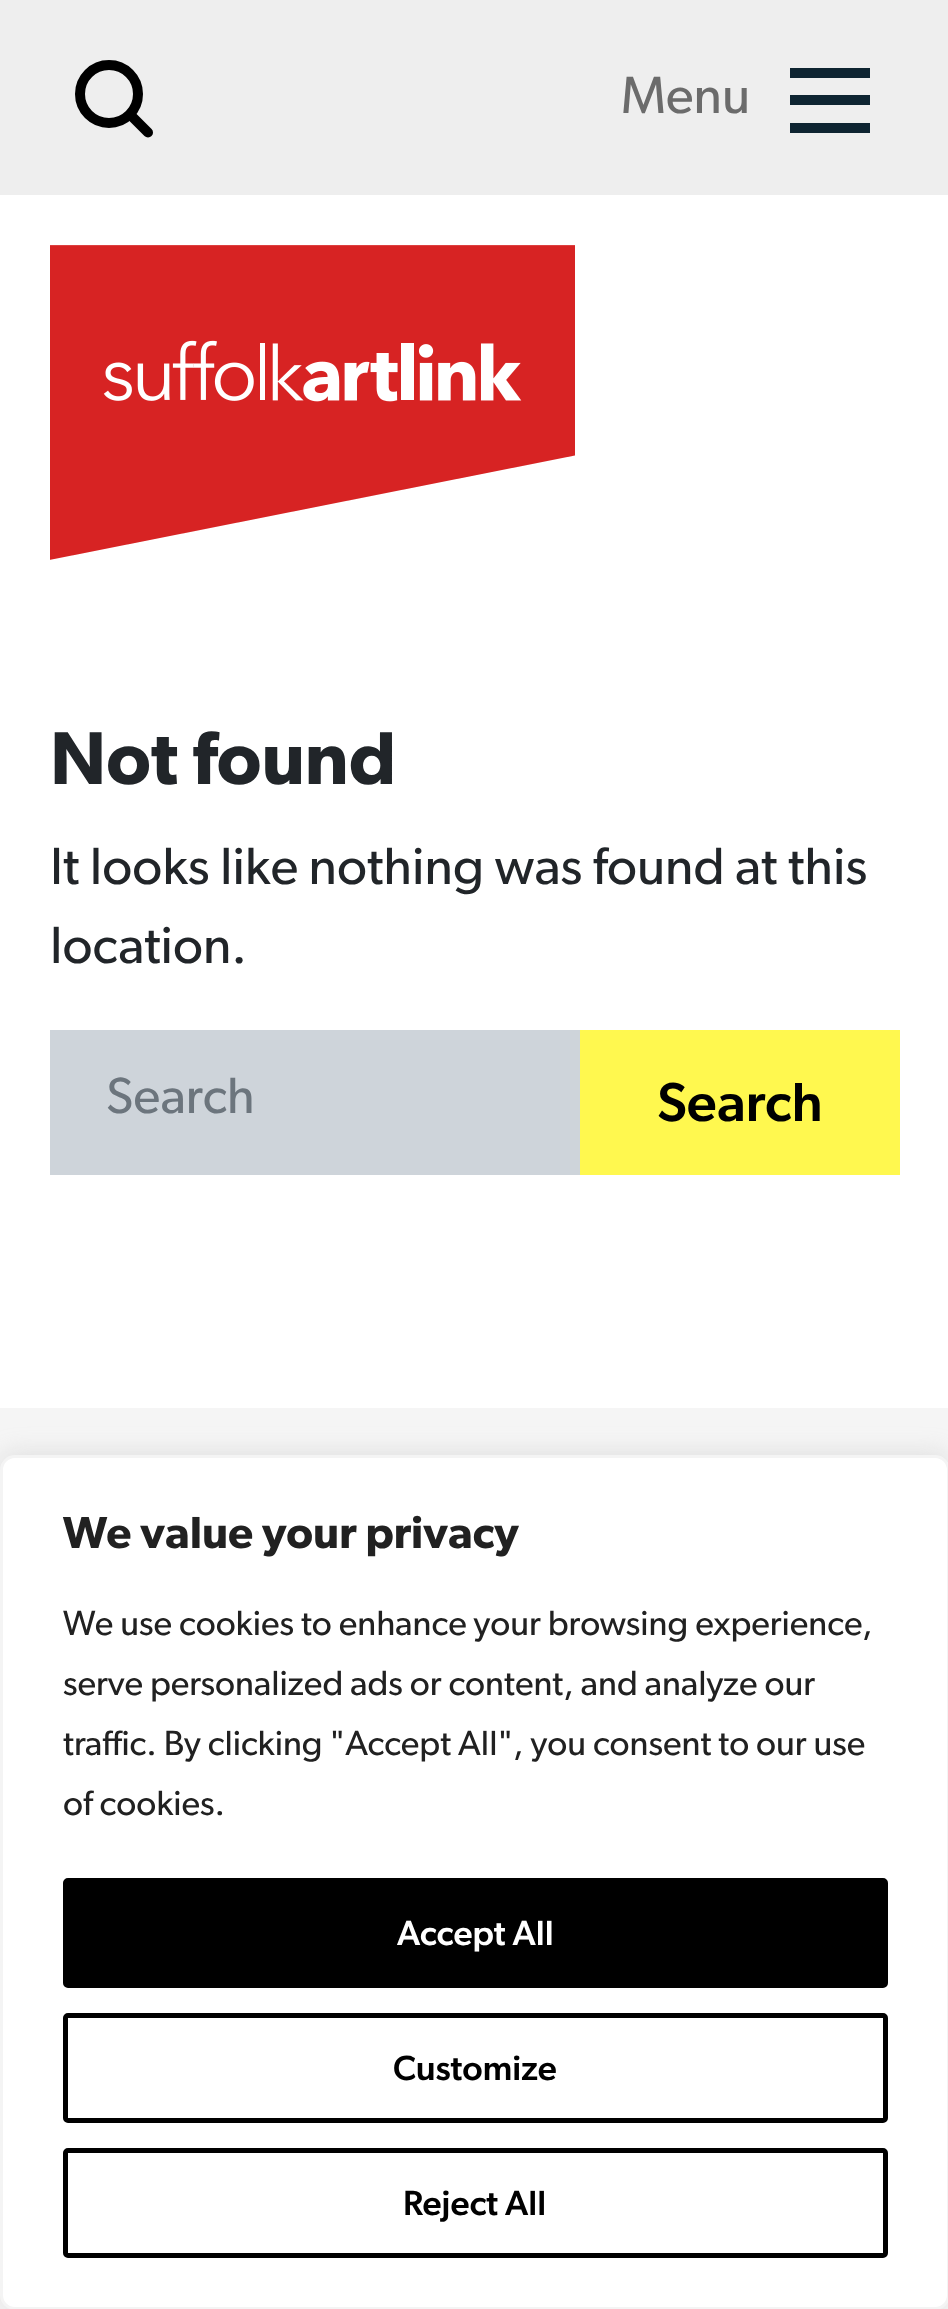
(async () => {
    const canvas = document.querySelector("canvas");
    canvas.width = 948;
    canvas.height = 2309;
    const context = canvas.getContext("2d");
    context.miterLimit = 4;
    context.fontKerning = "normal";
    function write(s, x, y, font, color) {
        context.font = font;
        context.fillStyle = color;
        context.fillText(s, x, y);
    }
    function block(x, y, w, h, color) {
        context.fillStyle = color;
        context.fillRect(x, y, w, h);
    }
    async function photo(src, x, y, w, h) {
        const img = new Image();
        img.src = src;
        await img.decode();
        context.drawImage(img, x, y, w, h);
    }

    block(0, 0, 948, 2309, "rgb(255, 255, 255)");
    block(0, 0, 948, 195, "rgb(238, 238, 238)");
    context.beginPath();
    context.arc(109, 94, 29, 0, Math.PI * 2);
    context.strokeStyle = "rgb(0, 0, 0)";
    context.lineWidth = 10;
    context.stroke();
    context.beginPath();
    context.moveTo(133, 117.5);
    context.lineTo(148, 132.5);
    context.lineCap = "round";
    context.stroke();
    write("Menu", 621, 113, "52.5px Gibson", "rgb(107, 107, 107)");
    block(790, 68, 80, 10, "rgb(14, 36, 49)");
    block(790, 95, 80, 10, "rgb(14, 36, 49)");
    block(790, 123, 80, 10, "rgb(14, 36, 49)");
    await photo("media/1.png", 50, 245, 525, 315);
    write("Not found", 50, 784, "600 75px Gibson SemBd", "rgb(33, 37, 41)");
    write("It looks like nothing was found at this", 50, 884, "52.5px Gibson", "rgb(33, 37, 41)");
    write("location.", 50, 963, "52.5px Gibson", "rgb(33, 37, 41)");
    block(50, 1030, 530, 145, "rgb(206, 212, 218)");
    write("Search", 106, 1113, "51px Gibson", "rgb(108, 117, 125)");
    block(580, 1030, 320, 145, "rgb(255, 248, 79)");
    write("Search", 657, 1121, "500 55px Gibson", "rgb(0, 0, 0)");
    block(0, 1408, 948, 901, "rgb(245, 245, 245)");
    context.fillStyle = "rgba(172, 171, 171, 0.3)";
    context.filter = "blur(12.5px)";
    context.beginPath();
    context.roundRect(0, 1453, 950, 855, 15);
    context.fill();
    context.filter = "none";
    context.fillStyle = "rgb(255, 255, 255)";
    context.beginPath();
    context.roundRect(1.5, 1456.5, 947, 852, 13.5);
    context.fill();
    context.strokeStyle = "rgb(244, 244, 244)";
    context.lineWidth = 3;
    context.stroke();
    write("We value your privacy", 63, 1548, "600 45px Gibson SemBd", "rgb(33, 33, 33)");
    write("We use cookies to enhance your browsing experience,", 63, 1635, "35px Gibson", "rgb(33, 33, 33)");
    write("serve personalized ads or content, and analyze our", 63, 1695, "35px Gibson", "rgb(33, 33, 33)");
    write("traffic. By clicking \"Accept All\", you consent to our use", 63, 1755, "35px Gibson", "rgb(33, 33, 33)");
    write("of cookies.", 63, 1815, "35px Gibson", "rgb(33, 33, 33)");
    context.fillStyle = "rgb(0, 0, 0)";
    context.beginPath();
    context.roundRect(65.5, 1880.5, 820, 105, 2.5);
    context.fill();
    context.strokeStyle = "rgb(0, 0, 0)";
    context.lineWidth = 5;
    context.stroke();
    write("Accept All", 397, 1945, "500 35px Gibson", "rgb(255, 255, 255)");
    context.beginPath();
    context.roundRect(65.5, 2015.5, 820, 105, 2.5);
    context.stroke();
    write("Customize", 393, 2080, "500 35px Gibson", "rgb(0, 0, 0)");
    context.beginPath();
    context.roundRect(65.5, 2150.5, 820, 105, 2.5);
    context.stroke();
    write("Reject All", 403, 2215, "500 35px Gibson", "rgb(0, 0, 0)");
})();
